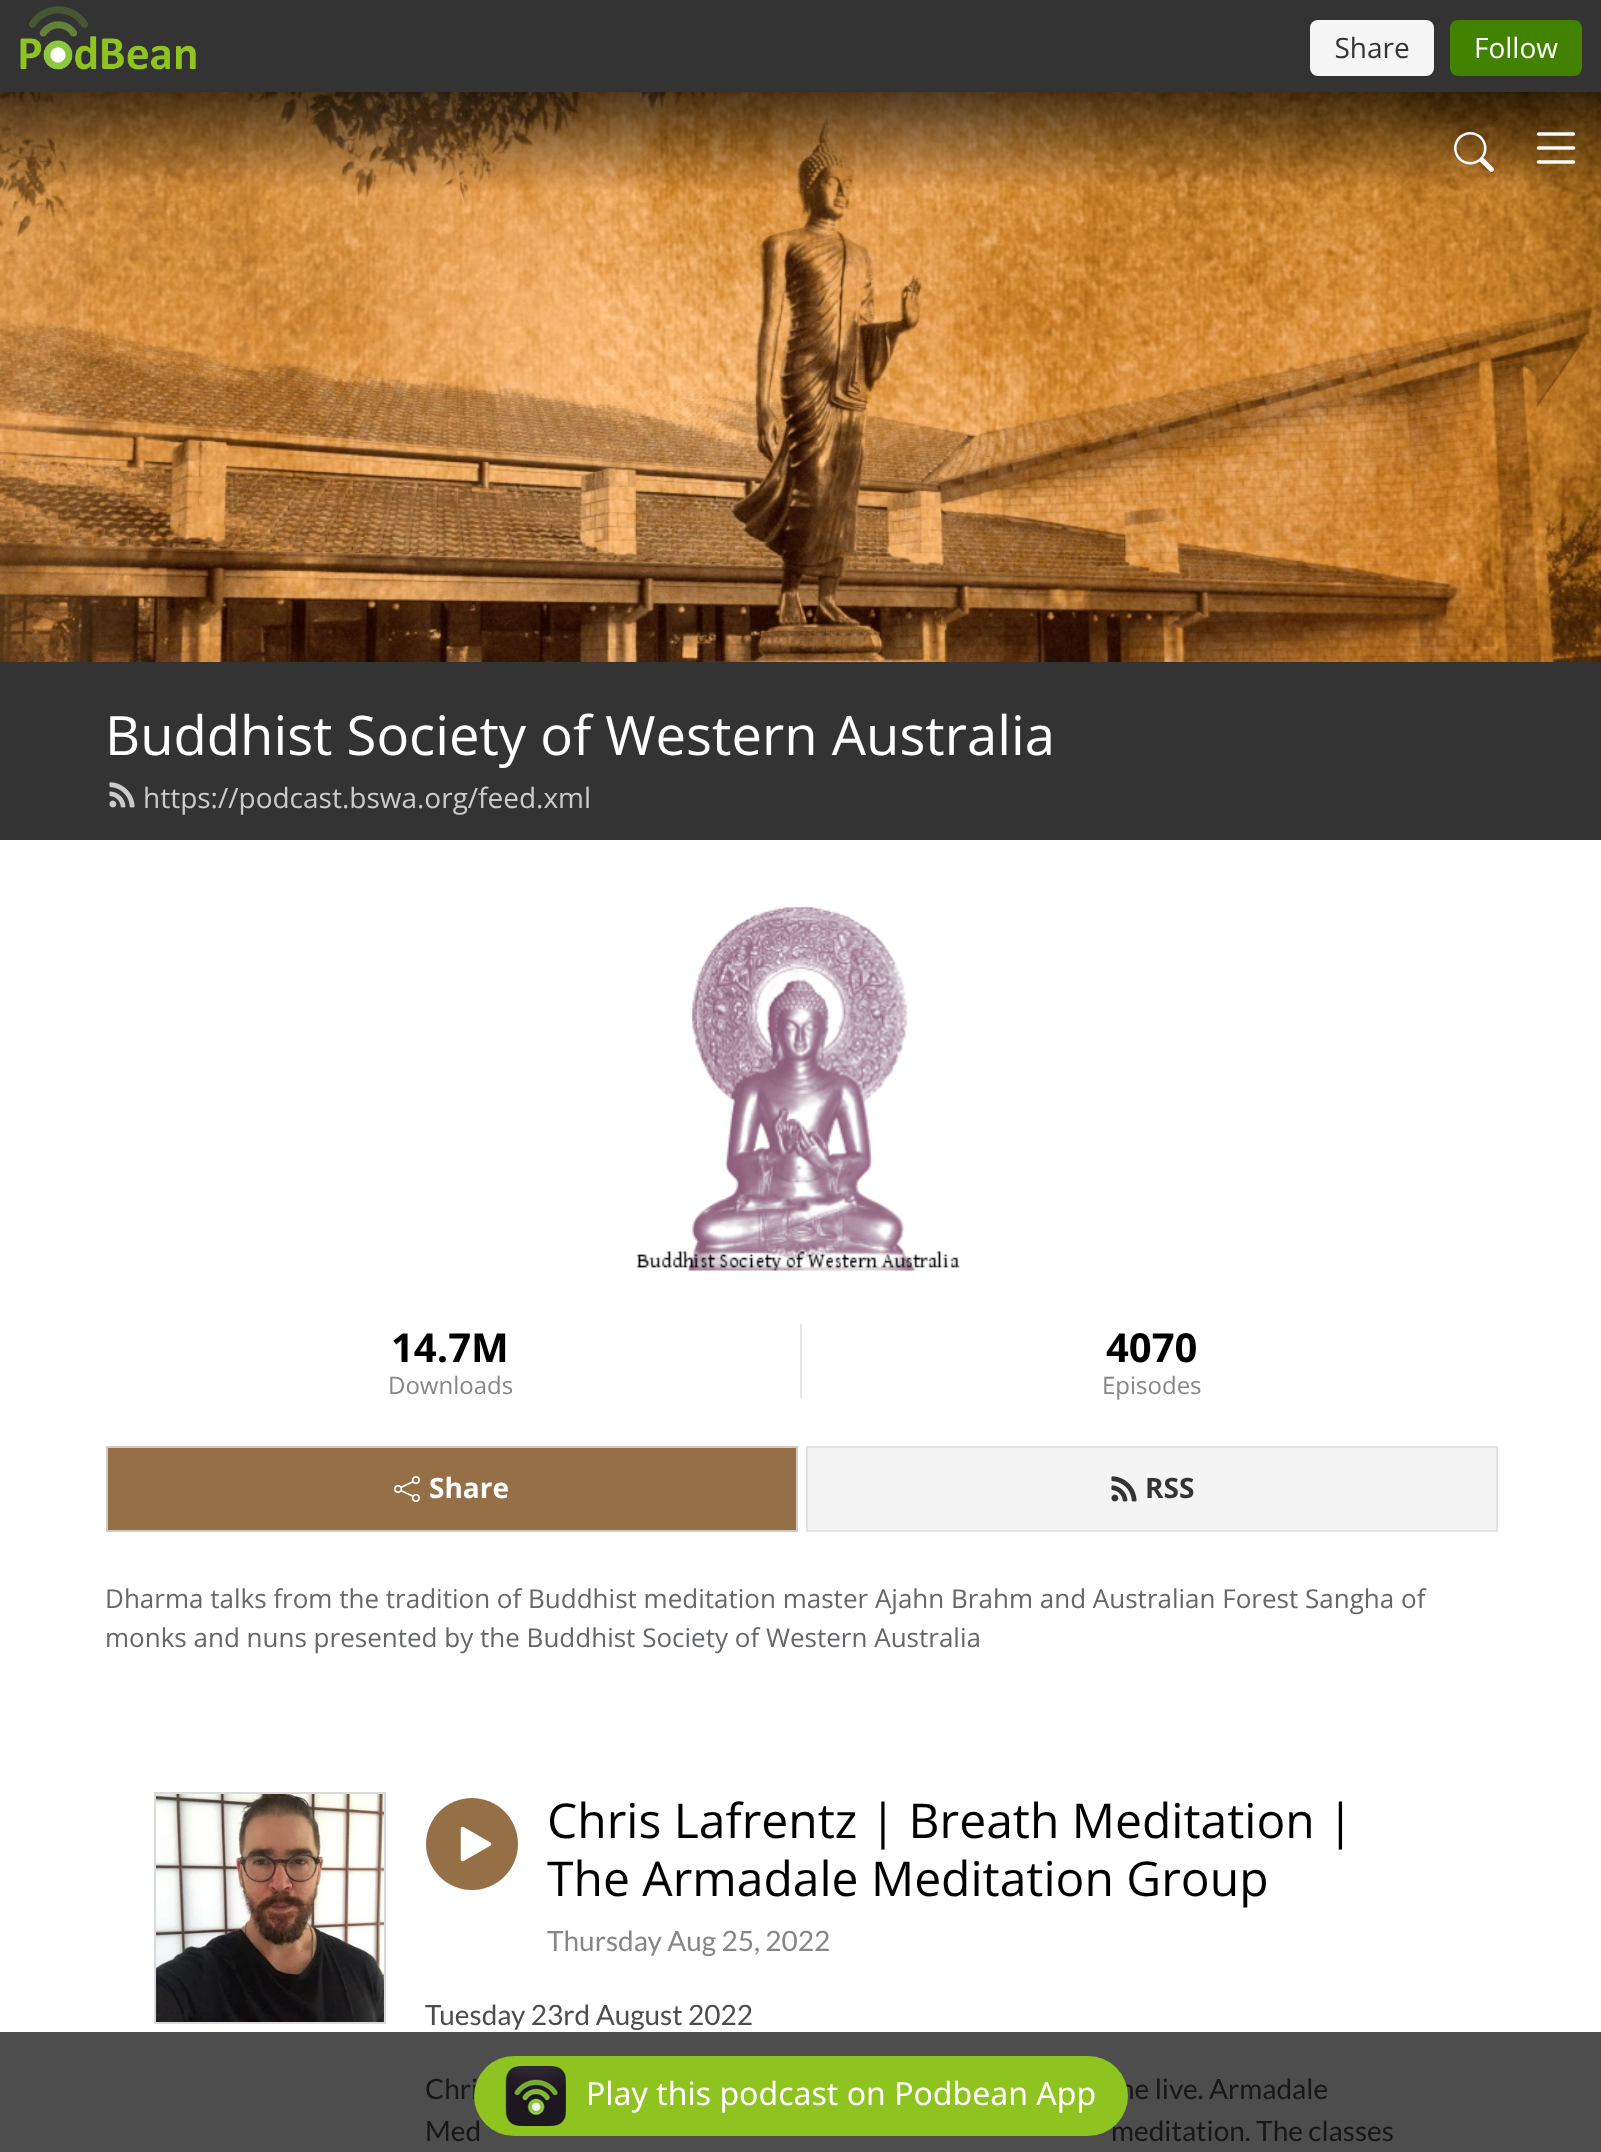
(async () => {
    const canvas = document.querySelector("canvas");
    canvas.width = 1601;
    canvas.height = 2152;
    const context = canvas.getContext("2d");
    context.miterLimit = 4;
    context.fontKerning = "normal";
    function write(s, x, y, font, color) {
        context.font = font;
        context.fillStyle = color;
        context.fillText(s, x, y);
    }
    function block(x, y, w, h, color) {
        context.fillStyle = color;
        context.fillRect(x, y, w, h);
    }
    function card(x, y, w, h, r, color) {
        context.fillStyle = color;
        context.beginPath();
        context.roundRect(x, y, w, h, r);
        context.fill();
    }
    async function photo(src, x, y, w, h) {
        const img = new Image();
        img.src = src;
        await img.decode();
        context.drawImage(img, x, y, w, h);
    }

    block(0, 0, 1601, 2152, "rgb(255, 255, 255)");
    block(0, 2032, 1601, 120, "rgb(77, 77, 77)");
    block(0, 0, 1601, 92, "rgb(51, 51, 51)");
    await photo("media/1.png", 20, 6, 1562, 70);
    await photo("media/4.png", 0, 92, 1601, 570);
    await photo("media/2.png", 1454, 132, 40, 40);
    await photo("media/3.png", 1536, 132, 40, 32);
    block(0, 662, 1601, 178, "rgb(51, 51, 51)");
    write("Buddhist Society of Western Australia", 105, 755, "54.4px Open Sans", "rgb(255, 255, 255)");
    await photo("media/5.png", 109, 782, 26, 26);
    write("https://podcast.bswa.org/feed.xml", 143, 808, "28px Open Sans", "rgb(204, 204, 204)");
    await photo("media/6.png", 636, 906, 324, 365);
    write("14.7M", 391, 1362, "bold 40px Open Sans", "rgb(0, 0, 0)");
    write("Downloads", 388, 1394, "24px Open Sans", "rgb(134, 134, 134)");
    block(800, 1324, 2, 74, "rgb(230, 230, 230)");
    write("4070", 1106, 1362, "bold 40px Open Sans", "rgb(0, 0, 0)");
    write("Episodes", 1102, 1394, "24px Open Sans", "rgb(134, 134, 134)");
    context.fillStyle = "rgb(149, 111, 70)";
    context.beginPath();
    context.rect(107, 1447, 690, 84);
    context.fill();
    context.strokeStyle = "rgb(211, 203, 195)";
    context.lineWidth = 2;
    context.stroke();
    await photo("media/7.png", 394, 1476, 26, 26);
    write("Share", 429, 1498, "bold 28px Open Sans", "rgb(255, 255, 255)");
    context.fillStyle = "rgb(244, 244, 244)";
    context.beginPath();
    context.rect(807, 1447, 690, 84);
    context.fill();
    context.strokeStyle = "rgb(226, 226, 226)";
    context.stroke();
    await photo("media/8.png", 1111, 1476, 26, 26);
    write("RSS", 1145, 1498, "bold 28px Open Sans", "rgb(51, 51, 51)");
    write("Dharma talks from the tradition of Buddhist meditation master Ajahn Brahm and Australian Forest Sangha of", 105, 1608, "26.02px Open Sans", "rgb(100, 102, 105)");
    write("monks and nuns presented by the Buddhist Society of Western Australia", 105, 1647, "26.02px Open Sans", "rgb(100, 102, 105)");
    context.strokeStyle = "rgb(218, 218, 218)";
    context.strokeRect(155, 1793, 230, 230);
    await photo("media/9.png", 156, 1794, 228, 228);
    context.fillStyle = "rgb(149, 111, 70)";
    context.beginPath();
    context.arc(472, 1844, 46, 0, Math.PI * 2);
    context.fill();
    await photo("media/10.png", 460, 1826, 32, 36);
    write("Chris Lafrentz | Breath Meditation |", 547, 1838, "48px Open Sans", "rgb(0, 0, 0)");
    write("The Armadale Meditation Group", 547, 1896, "48px Open Sans", "rgb(0, 0, 0)");
    write("Thursday Aug 25, 2022", 547, 1951, "28px Lato", "rgb(134, 134, 134)");
    write("Tuesday 23rd August 2022", 425, 2025, "28px Lato", "rgb(76, 76, 76)");
    write("Chri", 425, 2099, "28px Lato", "rgb(23, 23, 23)");
    write("ne live. Armadale", 1119, 2099, "28px Lato", "rgb(23, 23, 23)");
    write("Med", 425, 2141, "28px Lato", "rgb(23, 23, 23)");
    write("meditation. The classes", 1111, 2141, "28px Lato", "rgb(23, 23, 23)");
    card(474, 2056, 654, 80, 40, "rgb(143, 195, 31)");
    await photo("media/11.png", 505, 2066, 61, 60);
    write("Play this podcast on Podbean App", 586, 2105, "32px Noto Sans", "rgb(255, 255, 255)");
})();
